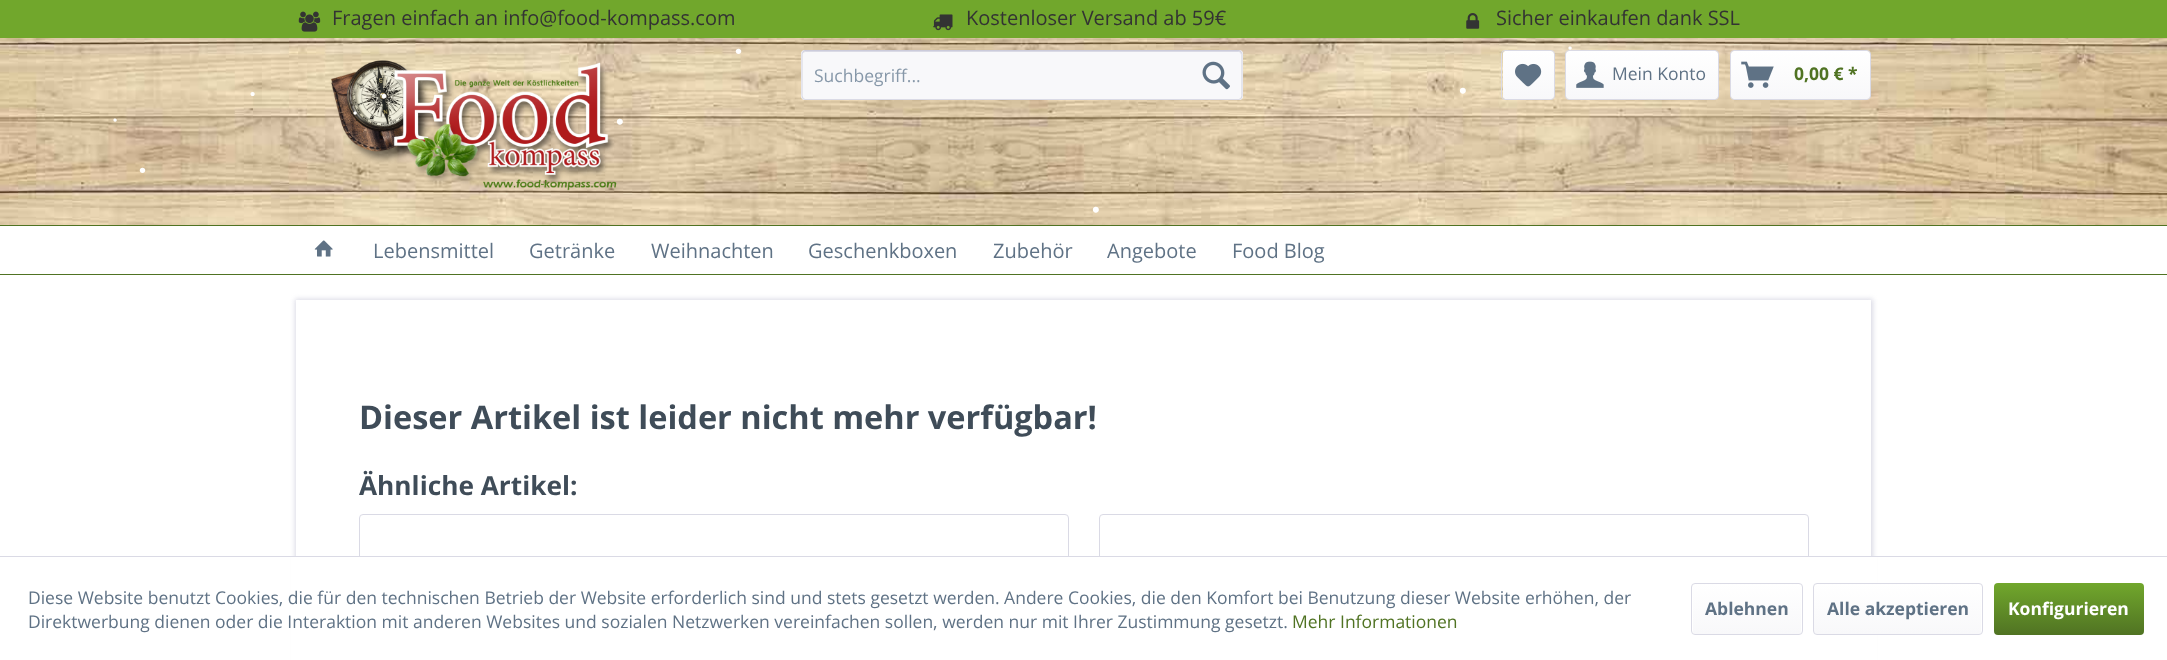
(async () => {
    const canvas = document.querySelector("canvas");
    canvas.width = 2167;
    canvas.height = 660;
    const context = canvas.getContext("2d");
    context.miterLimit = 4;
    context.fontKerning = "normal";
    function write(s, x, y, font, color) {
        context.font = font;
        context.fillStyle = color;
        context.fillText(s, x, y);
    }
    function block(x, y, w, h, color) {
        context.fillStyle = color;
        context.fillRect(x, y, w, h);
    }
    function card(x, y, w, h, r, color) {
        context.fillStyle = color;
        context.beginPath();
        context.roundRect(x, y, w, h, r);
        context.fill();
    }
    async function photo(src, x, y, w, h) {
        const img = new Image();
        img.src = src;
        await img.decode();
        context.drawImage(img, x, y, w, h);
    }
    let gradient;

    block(0, 0, 2167, 660, "rgb(255, 255, 255)");
    await photo("media/1.png", 0, 38, 2167, 187);
    block(0, 225, 2167, 1, "rgb(80, 115, 35)");
    block(0, 0, 2167, 38, "rgb(113, 167, 44)");
    await photo("media/2.png", 298, 11, 23, 21);
    write("Fragen einfach an info@food-kompass.com", 332, 25, "20px Open Sans", "rgb(51, 51, 51)");
    await photo("media/3.png", 933, 14, 20, 17);
    write("Kostenloser Versand ab 59€", 966, 25, "20px Open Sans", "rgb(51, 51, 51)");
    await photo("media/4.png", 1466, 13, 14, 16);
    write("Sicher einkaufen dank SSL", 1496, 25, "20px Open Sans", "rgb(51, 51, 51)");
    await photo("media/5.png", 331, 60, 286, 131);
    card(801, 50, 442, 50, 4, "rgb(248, 248, 250)");
    context.fillStyle = "rgb(218, 218, 229)";
    context.beginPath();
    context.moveTo(805, 52);
    context.lineTo(1239, 52);
    context.bezierCurveTo(1240, 52, 1241, 54, 1241, 55);
    context.lineTo(1241, 54);
    context.bezierCurveTo(1241, 52, 1240, 51, 1238, 51);
    context.lineTo(806, 51);
    context.bezierCurveTo(804, 51, 803, 52, 803, 53);
    context.closePath();
    context.fill();
    context.beginPath();
    context.moveTo(803, 51.5);
    context.lineTo(805, 50.5);
    context.lineTo(1239, 50.5);
    context.lineTo(1241, 51.5);
    context.strokeStyle = "rgb(203, 203, 219)";
    context.lineWidth = 1.2;
    context.stroke();
    context.beginPath();
    context.moveTo(1241, 51.5);
    context.lineTo(1242, 54);
    context.lineTo(1242, 96);
    context.lineTo(1241, 98.5);
    context.lineTo(1239, 99.5);
    context.lineTo(805, 99.5);
    context.lineTo(803, 98.5);
    context.lineTo(802, 96);
    context.lineTo(802, 54);
    context.lineTo(803, 51.5);
    context.strokeStyle = "rgb(218, 218, 229)";
    context.stroke();
    write("Suchbegriff...", 814, 82, "17.5px Open Sans", "rgb(135, 152, 169)");
    await photo("media/6.png", 1202, 61, 28, 29);
    gradient = context.createLinearGradient(1528, 51, 1528, 99);
    gradient.addColorStop(0, "rgb(255, 255, 255)");
    gradient.addColorStop(1, "rgb(248, 248, 250)");
    context.fillStyle = gradient;
    context.beginPath();
    context.roundRect(1503, 51, 51, 48, 2.5);
    context.fill();
    context.beginPath();
    context.roundRect(1501.5, 50.5, 53, 49, 3.5);
    context.lineWidth = 1;
    context.stroke();
    await photo("media/7.png", 1515, 63, 27, 24);
    gradient = context.createLinearGradient(1642, 51, 1642, 99);
    gradient.addColorStop(0, "rgb(255, 255, 255)");
    gradient.addColorStop(1, "rgb(248, 248, 250)");
    context.fillStyle = gradient;
    context.beginPath();
    context.roundRect(1566, 51, 152, 48, 2.5);
    context.fill();
    context.beginPath();
    context.roundRect(1565.5, 50.5, 153, 49, 3.5);
    context.stroke();
    await photo("media/8.png", 1576, 61, 28, 27);
    write("Mein Konto", 1612, 80, "17.5px Open Sans", "rgb(95, 114, 133)");
    gradient = context.createLinearGradient(1801, 51, 1801, 99);
    gradient.addColorStop(0, "rgb(255, 255, 255)");
    gradient.addColorStop(1, "rgb(248, 248, 250)");
    context.fillStyle = gradient;
    context.beginPath();
    context.roundRect(1731, 51, 139, 48, 2.5);
    context.fill();
    context.beginPath();
    context.roundRect(1730.5, 50.5, 140, 49, 3.5);
    context.stroke();
    await photo("media/9.png", 1741, 61, 33, 27);
    write("0,00 € *", 1794, 80, "bold 17.5px Open Sans", "rgb(80, 115, 35)");
    block(0, 274, 2167, 1, "rgb(80, 115, 35)");
    await photo("media/10.png", 314, 240, 19, 17);
    write("Lebensmittel", 373, 258, "20px Open Sans", "rgb(95, 114, 133)");
    write("Getränke", 529, 258, "20px Open Sans", "rgb(95, 114, 133)");
    write("Weihnachten", 651, 258, "20px Open Sans", "rgb(95, 114, 133)");
    write("Geschenkboxen", 808, 258, "20px Open Sans", "rgb(95, 114, 133)");
    write("Zubehör", 993, 258, "20px Open Sans", "rgb(95, 114, 133)");
    write("Angebote", 1107, 258, "20px Open Sans", "rgb(95, 114, 133)");
    write("Food Blog", 1232, 258, "20px Open Sans", "rgb(95, 114, 133)");
    context.fillStyle = "rgb(218, 218, 229)";
    context.filter = "blur(2.5px)";
    context.beginPath();
    context.rect(295, 299, 1578, 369);
    context.fill();
    context.filter = "none";
    block(296, 300, 1575, 256, "rgb(255, 255, 255)");
    write("Dieser Artikel ist leider nicht mehr verfügbar!", 359, 429, "bold 32.5px Open Sans", "rgb(63, 76, 88)");
    write("Ähnliche Artikel:", 359, 495, "bold 26.25px Open Sans", "rgb(63, 76, 88)");
    context.beginPath();
    context.roundRect(359.5, 514.5, 709, 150, 3.5);
    context.stroke();
    context.beginPath();
    context.roundRect(1099.5, 514.5, 709, 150, 3.5);
    context.stroke();
    write("•", 735, 58, "20px Liberation Sans", "rgb(255, 255, 255)");
    write("•", 1568, 52, "12px Liberation Sans", "rgb(255, 255, 255)");
    write("•", 1459, 98, "22px Liberation Sans", "rgb(255, 255, 255)");
    write("•", 250, 99, "15px Liberation Sans", "rgb(255, 255, 255)");
    write("•", 381, 102, "17.5px Liberation Sans", "rgb(255, 255, 255)");
    write("•", 353, 117, "12px Liberation Sans", "rgb(255, 255, 255)");
    write("•", 113, 124, "12px Liberation Sans", "rgb(255, 255, 255)");
    write("•", 616, 129, "22px Liberation Sans", "rgb(255, 255, 255)");
    write("•", 139, 177, "20px Liberation Sans", "rgb(255, 255, 255)");
    write("•", 1092, 217, "22px Liberation Sans", "rgb(255, 255, 255)");
    block(291, 557, 1586, 103, "rgb(255, 255, 255)");
    block(0, 556, 2167, 1, "rgb(218, 218, 229)");
    write("Diese Website benutzt Cookies, die für den technischen Betrieb der Website erforderlich sind und stets gesetzt werden. Andere Cookies, die den Komfort bei Benutzung dieser Website erhöhen, der", 28, 604, "17.5px Open Sans", "rgb(95, 114, 133)");
    write("Direktwerbung dienen oder die Interaktion mit anderen Websites und sozialen Netzwerken vereinfachen sollen, werden nur mit Ihrer Zustimmung gesetzt.", 28, 628, "17.5px Open Sans", "rgb(95, 114, 133)");
    write("Mehr Informationen", 1292, 628, "17.5px Open Sans", "rgb(80, 115, 35)");
    gradient = context.createLinearGradient(1747, 584, 1747, 634);
    gradient.addColorStop(0, "rgb(255, 255, 255)");
    gradient.addColorStop(1, "rgb(248, 248, 250)");
    context.fillStyle = gradient;
    context.beginPath();
    context.roundRect(1693, 584, 108, 50, 2.5);
    context.fill();
    context.beginPath();
    context.roundRect(1691.5, 583.5, 111, 51, 3.5);
    context.stroke();
    write("Ablehnen", 1705, 615, "bold 17.5px Open Sans", "rgb(95, 114, 133)");
    gradient = context.createLinearGradient(1898, 584, 1898, 634);
    gradient.addColorStop(0, "rgb(255, 255, 255)");
    gradient.addColorStop(1, "rgb(248, 248, 250)");
    context.fillStyle = gradient;
    context.beginPath();
    context.roundRect(1814, 584, 167, 50, 2.5);
    context.fill();
    context.beginPath();
    context.roundRect(1813.5, 583.5, 169, 51, 3.5);
    context.stroke();
    write("Alle akzeptieren", 1827, 615, "bold 17.5px Open Sans", "rgb(95, 114, 133)");
    gradient = context.createLinearGradient(2069, 583, 2069, 635);
    gradient.addColorStop(0, "rgb(113, 167, 44)");
    gradient.addColorStop(1, "rgb(80, 115, 35)");
    context.fillStyle = gradient;
    context.beginPath();
    context.roundRect(1994, 583, 150, 52, 4);
    context.fill();
    write("Konfigurieren", 2008, 615, "bold 17.5px Open Sans", "rgb(255, 255, 255)");
})();
